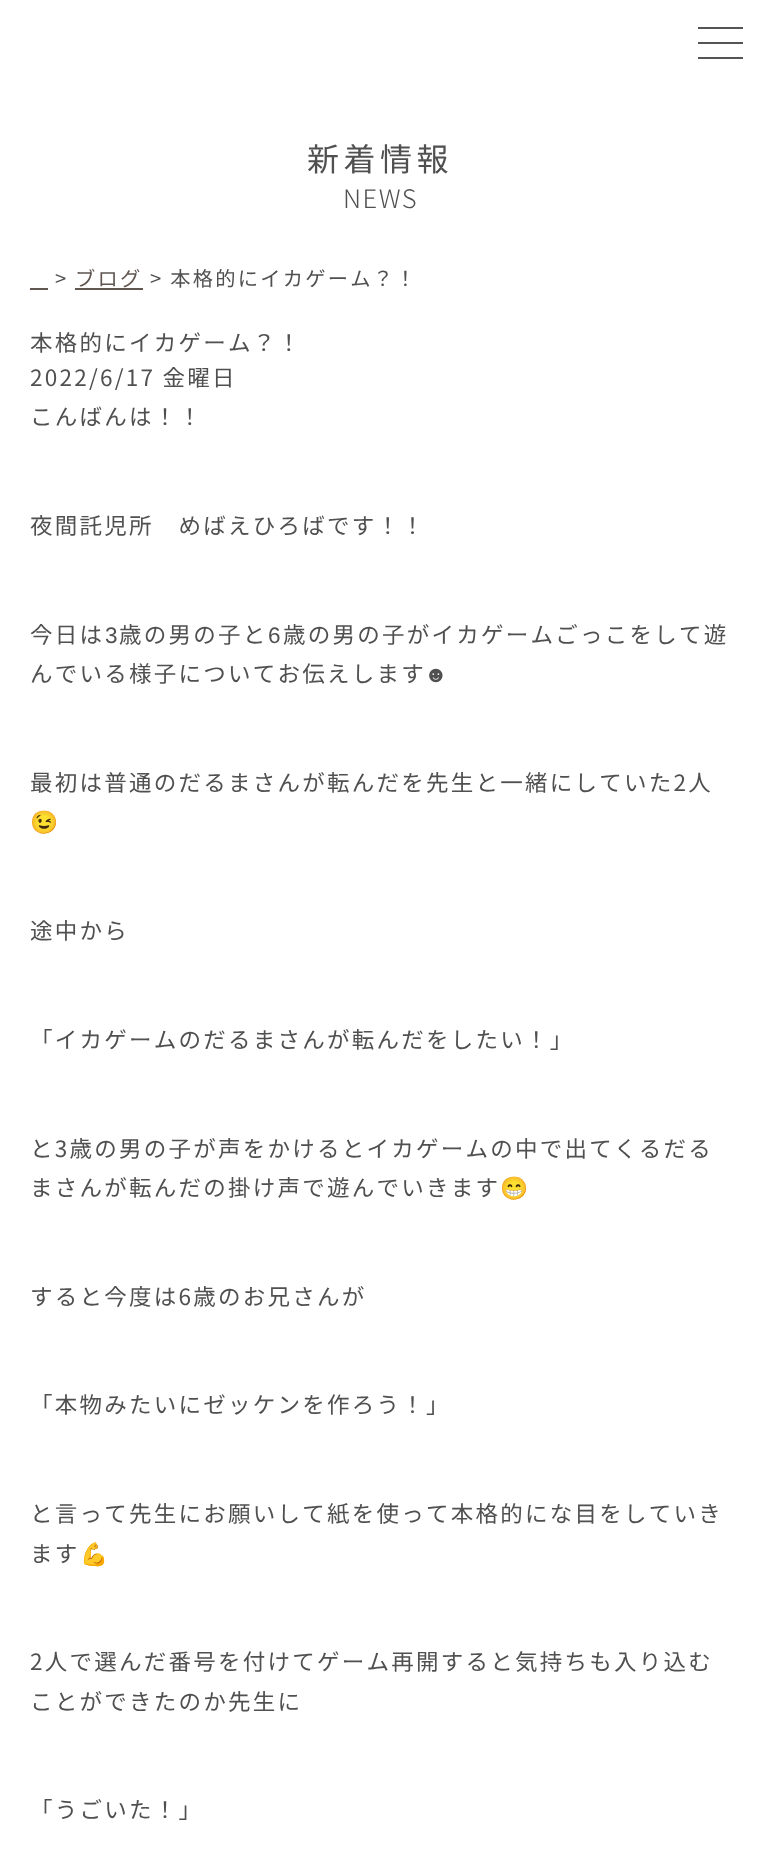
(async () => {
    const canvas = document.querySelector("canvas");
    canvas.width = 760;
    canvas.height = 1873;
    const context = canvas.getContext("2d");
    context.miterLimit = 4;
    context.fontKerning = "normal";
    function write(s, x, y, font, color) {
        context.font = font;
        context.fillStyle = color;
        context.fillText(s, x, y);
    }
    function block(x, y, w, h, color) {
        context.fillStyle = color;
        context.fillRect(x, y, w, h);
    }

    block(0, 0, 760, 1873, "rgb(255, 255, 255)");
    block(698, 42, 45, 2, "rgb(85, 85, 85)");
    block(698, 27, 45, 2, "rgb(85, 85, 85)");
    block(698, 57, 45, 2, "rgb(85, 85, 85)");
    context.letterSpacing = "4.5px";
    write("新着情報", 307, 171, "32px Noto Sans JP", "rgb(80, 80, 80)");
    context.letterSpacing = "1.5px";
    write("NEWS", 343, 208, "300 25.5px Noto Sans JP", "rgb(80, 80, 80)");
    context.letterSpacing = "2.25px";
    write(">", 55, 286, "20.25px Noto Sans JP", "rgb(80, 80, 80)");
    write("ブログ", 75, 286, "20.25px Noto Sans JP", "rgb(97, 86, 80)");
    block(75, 288, 68, 2, "rgb(97, 86, 80)");
    write("> 本格的にイカゲーム？！", 150, 286, "20.25px Noto Sans JP", "rgb(80, 80, 80)");
    block(30, 288, 18, 2, "rgb(97, 86, 80)");
    write("本格的にイカゲーム？！", 30, 351, "22.5px Noto Sans JP", "rgb(80, 80, 80)");
    write("2022/6/17 金曜日", 30, 386, "22.5px Noto Sans JP", "rgb(80, 80, 80)");
    write("こんばんは！！", 30, 425, "22.5px Noto Sans JP", "rgb(80, 80, 80)");
    write("夜間託児所　めばえひろばです！！", 30, 534, "22.5px Noto Sans JP", "rgb(80, 80, 80)");
    write("今日は", 30, 643, "22.5px Noto Sans JP", "rgb(80, 80, 80)");
    write("3", 105, 643, "22.5px Liberation Sans", "rgb(80, 80, 80)");
    write("歳の男の子と", 119, 643, "22.5px Noto Sans JP", "rgb(80, 80, 80)");
    write("6", 268, 643, "22.5px Liberation Sans", "rgb(80, 80, 80)");
    write("歳の男の子がイカゲームごっこをして遊", 283, 643, "22.5px Noto Sans JP", "rgb(80, 80, 80)");
    write("んでいる様子についてお伝えします", 30, 682, "22.5px Noto Sans JP", "rgb(80, 80, 80)");
    write("☻", 424, 682, "22.5px Liberation Sans", "rgb(80, 80, 80)");
    write("最初は普通のだるまさんが転んだを先生と一緒にしていた2人", 30, 791, "22.5px Noto Sans JP", "rgb(80, 80, 80)");
    write("😉", 30, 830, "22.5px Noto Color Emoji", "rgb(80, 80, 80)");
    write("途中から", 30, 939, "22.5px Noto Sans JP", "rgb(80, 80, 80)");
    write("「イカゲームのだるまさんが転んだをしたい！」", 30, 1048, "22.5px Noto Sans JP", "rgb(80, 80, 80)");
    write("と3歳の男の子が声をかけるとイカゲームの中で出てくるだる", 30, 1157, "22.5px Noto Sans JP", "rgb(80, 80, 80)");
    write("まさんが転んだの掛け声で遊んでいきます", 30, 1196, "22.5px Noto Sans JP", "rgb(80, 80, 80)");
    write("😁", 500, 1196, "22.5px Noto Color Emoji", "rgb(80, 80, 80)");
    write("すると今度は6歳のお兄さんが", 30, 1305, "22.5px Noto Sans JP", "rgb(80, 80, 80)");
    write("「本物みたいにゼッケンを作ろう！」", 30, 1413, "22.5px Noto Sans JP", "rgb(80, 80, 80)");
    write("と言って先生にお願いして紙を使って本格的にな目をしていき", 30, 1522, "22.5px Noto Sans JP", "rgb(80, 80, 80)");
    write("ます", 30, 1562, "22.5px Noto Sans JP", "rgb(80, 80, 80)");
    write("💪", 80, 1562, "22.5px Noto Color Emoji", "rgb(80, 80, 80)");
    write("2人で選んだ番号を付けてゲーム再開すると気持ちも入り込む", 30, 1670, "22.5px Noto Sans JP", "rgb(80, 80, 80)");
    write("ことができたのか先生に", 30, 1710, "22.5px Noto Sans JP", "rgb(80, 80, 80)");
    write("「うごいた！」", 30, 1818, "22.5px Noto Sans JP", "rgb(80, 80, 80)");
})();
